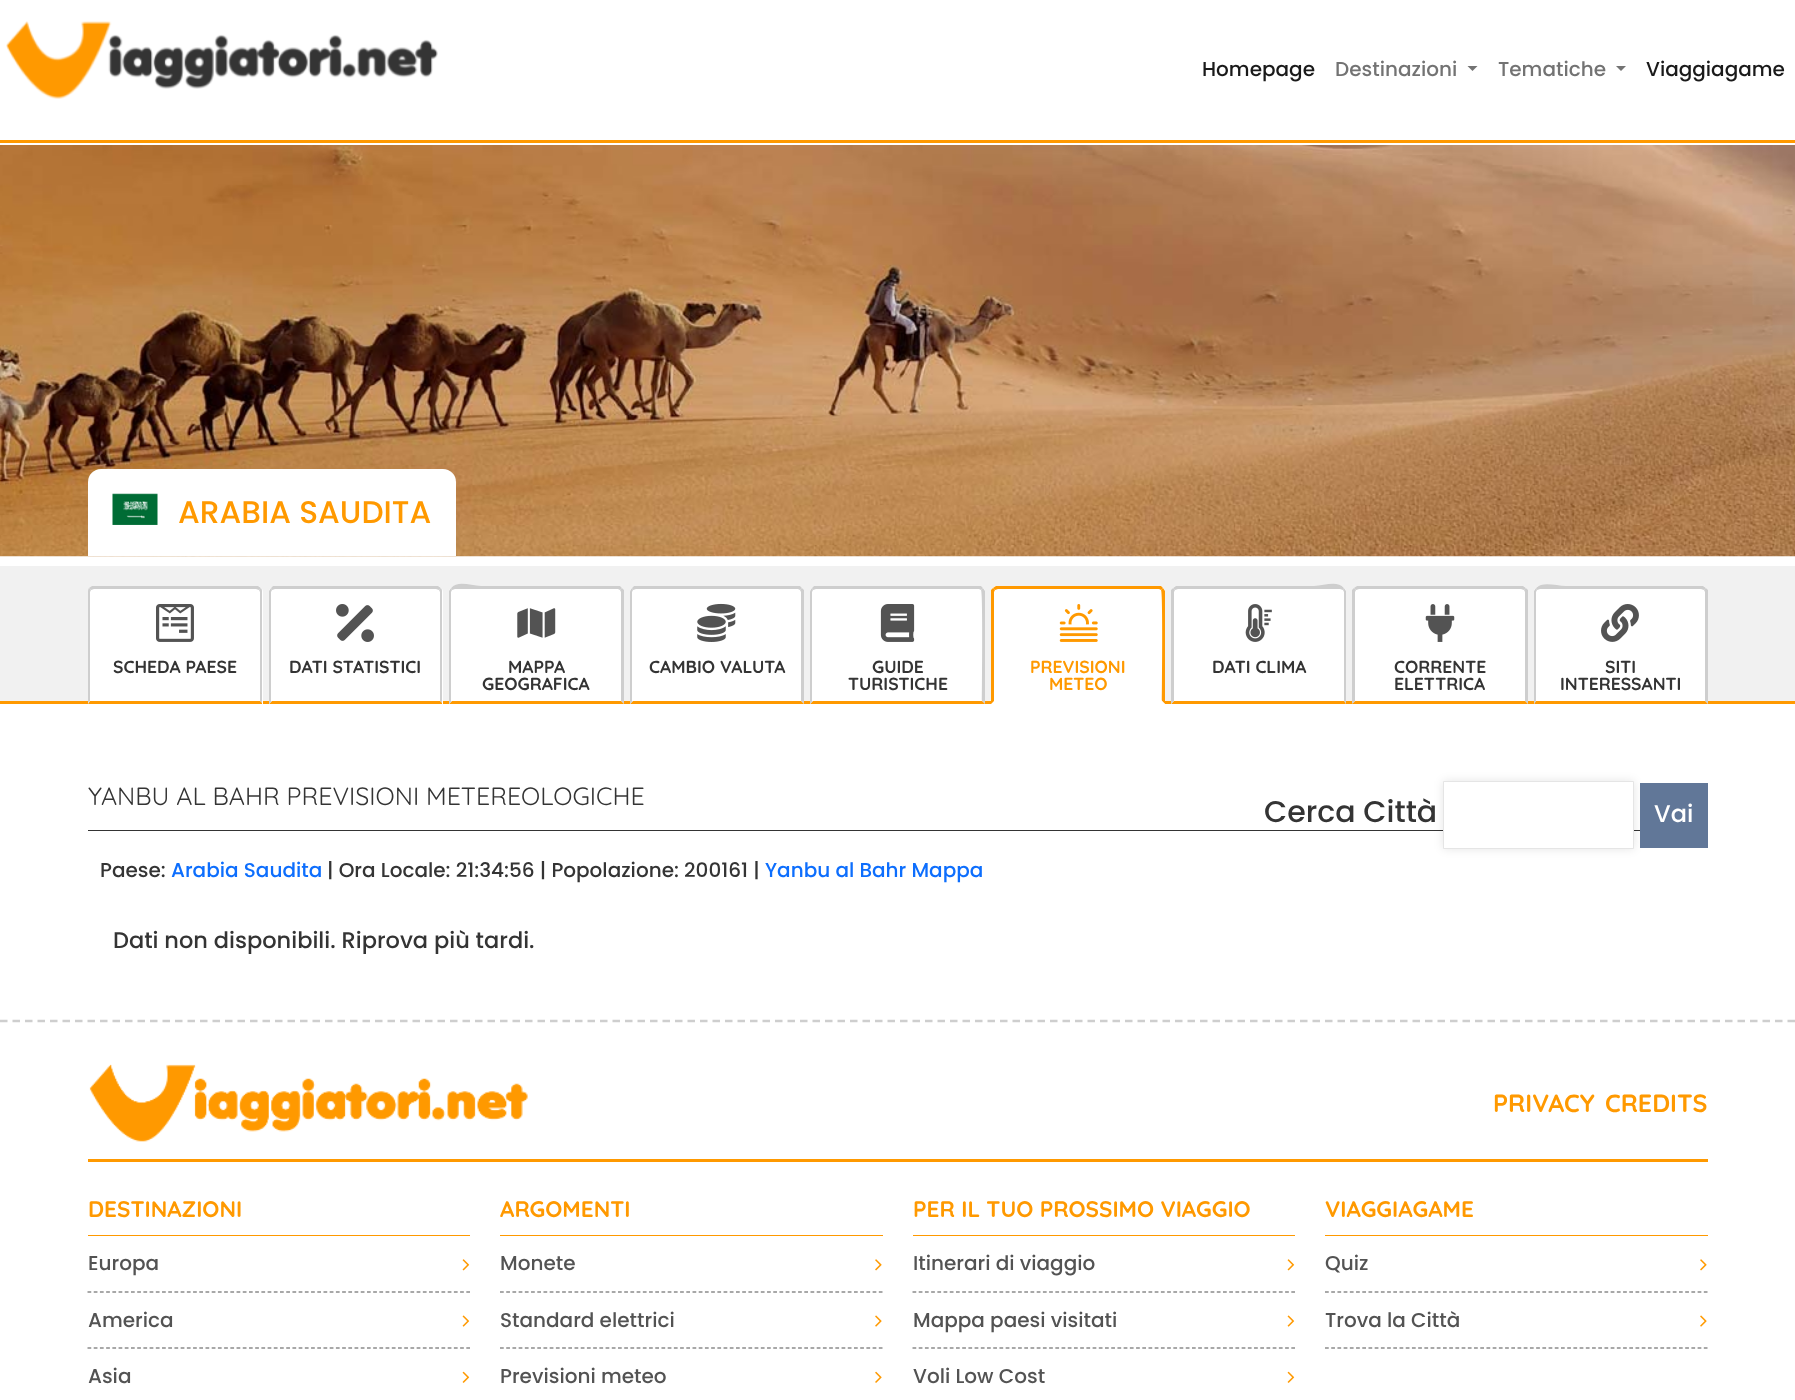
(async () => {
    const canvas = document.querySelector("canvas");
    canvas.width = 1795;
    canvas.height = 1400;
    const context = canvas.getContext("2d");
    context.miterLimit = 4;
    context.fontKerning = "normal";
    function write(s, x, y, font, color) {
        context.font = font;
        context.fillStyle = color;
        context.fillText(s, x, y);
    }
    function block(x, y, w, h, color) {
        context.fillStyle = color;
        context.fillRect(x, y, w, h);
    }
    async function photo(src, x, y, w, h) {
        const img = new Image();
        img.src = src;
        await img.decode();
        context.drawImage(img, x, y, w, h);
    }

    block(0, 0, 1795, 1400, "rgb(255, 255, 255)");
    block(0, 140, 1795, 3, "rgb(255, 153, 0)");
    await photo("media/1.png", 6, 21, 432, 78);
    write("Homepage", 1202, 76, "500 20px Poppins", "rgb(26, 26, 26)");
    write("Destinazioni", 1335, 76, "500 20px Poppins", "rgb(115, 115, 115)");
    context.beginPath();
    context.moveTo(1467.5, 66);
    context.lineTo(1477.5, 66);
    context.lineTo(1472.5, 71);
    context.closePath();
    context.fill();
    write("Tematiche", 1498, 76, "500 20px Poppins", "rgb(115, 115, 115)");
    context.beginPath();
    context.moveTo(1616, 66);
    context.lineTo(1626, 66);
    context.lineTo(1621, 71);
    context.closePath();
    context.fill();
    write("Viaggiagame", 1646, 76, "500 20px Poppins", "rgb(26, 26, 26)");
    await photo("media/2.png", 0, 145, 1795, 412);
    context.fillStyle = "rgb(255, 255, 255)";
    context.beginPath();
    context.roundRect(88, 469, 368, 87, [13, 13, 0, 0]);
    context.fill();
    await photo("media/3.png", 112, 493, 46, 32);
    write("ARABIA SAUDITA", 178, 523, "500 31.25px Poppins", "rgb(255, 153, 0)");
    block(0, 566, 1795, 135, "rgb(241, 241, 241)");
    block(0, 701, 1795, 3, "rgb(255, 153, 0)");
    context.fillStyle = "rgb(255, 255, 255)";
    context.beginPath();
    context.roundRect(88, 586, 175, 118, [6, 6, 0, 0]);
    context.fill();
    context.fillStyle = "rgb(206, 206, 206)";
    context.beginPath();
    context.moveTo(94, 589);
    context.lineTo(91, 590);
    context.lineTo(89, 588);
    context.lineTo(92, 586);
    context.lineTo(258, 586);
    context.lineTo(261, 588);
    context.lineTo(259, 590);
    context.lineTo(256, 589);
    context.closePath();
    context.fill();
    context.beginPath();
    context.moveTo(261, 588);
    context.bezierCurveTo(262, 589, 262, 591, 262, 592);
    context.lineTo(262, 703);
    context.lineTo(260, 701);
    context.lineTo(260, 592);
    context.lineTo(259, 590);
    context.closePath();
    context.fill();
    context.fillStyle = "rgb(255, 153, 0)";
    context.beginPath();
    context.moveTo(88, 704);
    context.lineTo(90, 701);
    context.lineTo(260, 701);
    context.lineTo(262, 703);
    context.lineTo(262, 704);
    context.closePath();
    context.fill();
    context.fillStyle = "rgb(206, 206, 206)";
    context.beginPath();
    context.moveTo(88, 703);
    context.lineTo(88, 592);
    context.bezierCurveTo(88, 591, 88, 589, 89, 588);
    context.lineTo(91, 590);
    context.lineTo(90, 592);
    context.lineTo(90, 701);
    context.closePath();
    context.fill();
    await photo("media/4.png", 156, 604, 38, 38);
    write("SCHEDA PAESE", 113, 673, "bold 17.5px Quicksand", "rgb(52, 52, 52)");
    context.fillStyle = "rgb(255, 255, 255)";
    context.beginPath();
    context.roundRect(269, 586, 174, 118, [6, 6, 0, 0]);
    context.fill();
    context.fillStyle = "rgb(206, 206, 206)";
    context.beginPath();
    context.moveTo(275, 589);
    context.lineTo(272, 590);
    context.lineTo(271, 588);
    context.lineTo(273, 586);
    context.lineTo(438, 586);
    context.lineTo(441, 588);
    context.lineTo(439, 590);
    context.lineTo(436, 589);
    context.closePath();
    context.fill();
    context.beginPath();
    context.moveTo(441, 588);
    context.bezierCurveTo(442, 589, 442, 591, 442, 592);
    context.lineTo(442, 703);
    context.lineTo(440, 701);
    context.lineTo(440, 592);
    context.lineTo(439, 590);
    context.closePath();
    context.fill();
    context.fillStyle = "rgb(255, 153, 0)";
    context.beginPath();
    context.moveTo(269, 704);
    context.lineTo(272, 701);
    context.lineTo(440, 701);
    context.lineTo(442, 703);
    context.lineTo(442, 704);
    context.closePath();
    context.fill();
    context.fillStyle = "rgb(206, 206, 206)";
    context.beginPath();
    context.moveTo(269, 704);
    context.lineTo(269, 591);
    context.lineTo(271, 588);
    context.lineTo(272, 590);
    context.lineTo(271, 592);
    context.lineTo(271, 701);
    context.lineTo(272, 701);
    context.closePath();
    context.fill();
    await photo("media/5.png", 336, 604, 38, 38);
    write("DATI STATISTICI", 289, 673, "bold 17.5px Quicksand", "rgb(52, 52, 52)");
    context.fillStyle = "rgb(255, 255, 255)";
    context.beginPath();
    context.roundRect(449, 586, 175, 118, [6, 6, 0, 0]);
    context.fill();
    context.fillStyle = "rgb(206, 206, 206)";
    context.beginPath();
    context.moveTo(455, 589);
    context.lineTo(452, 590);
    context.lineTo(451, 588);
    context.bezierCurveTo(458, 580, 471, 586, 481, 586);
    context.lineTo(620, 586);
    context.lineTo(622, 588);
    context.lineTo(620, 590);
    context.lineTo(618, 589);
    context.closePath();
    context.fill();
    context.beginPath();
    context.moveTo(622, 588);
    context.lineTo(624, 590);
    context.lineTo(624, 704);
    context.lineTo(621, 701);
    context.lineTo(621, 592);
    context.lineTo(620, 590);
    context.closePath();
    context.fill();
    context.fillStyle = "rgb(255, 153, 0)";
    context.beginPath();
    context.moveTo(624, 704);
    context.lineTo(449, 704);
    context.lineTo(452, 701);
    context.lineTo(621, 701);
    context.closePath();
    context.fill();
    context.fillStyle = "rgb(206, 206, 206)";
    context.beginPath();
    context.moveTo(449, 704);
    context.lineTo(449, 591);
    context.lineTo(451, 588);
    context.lineTo(452, 590);
    context.lineTo(451, 592);
    context.lineTo(451, 701);
    context.lineTo(452, 701);
    context.closePath();
    context.fill();
    await photo("media/6.png", 517, 608, 39, 30);
    write("MAPPA", 508, 673, "bold 17.5px Quicksand", "rgb(52, 52, 52)");
    write("GEOGRAFICA", 482, 690, "bold 17.5px Quicksand", "rgb(52, 52, 52)");
    context.fillStyle = "rgb(255, 255, 255)";
    context.beginPath();
    context.roundRect(630, 586, 174, 118, [6, 6, 0, 0]);
    context.fill();
    context.fillStyle = "rgb(206, 206, 206)";
    context.beginPath();
    context.moveTo(636, 589);
    context.lineTo(633, 590);
    context.lineTo(632, 588);
    context.lineTo(634, 586);
    context.lineTo(800, 586);
    context.lineTo(802, 588);
    context.lineTo(800, 590);
    context.lineTo(798, 589);
    context.closePath();
    context.fill();
    context.beginPath();
    context.moveTo(802, 588);
    context.lineTo(804, 590);
    context.lineTo(804, 704);
    context.lineTo(801, 701);
    context.lineTo(801, 592);
    context.lineTo(800, 590);
    context.closePath();
    context.fill();
    context.fillStyle = "rgb(255, 153, 0)";
    context.beginPath();
    context.moveTo(804, 704);
    context.lineTo(801, 701);
    context.lineTo(633, 701);
    context.lineTo(630, 704);
    context.closePath();
    context.fill();
    context.fillStyle = "rgb(206, 206, 206)";
    context.beginPath();
    context.moveTo(630, 704);
    context.lineTo(633, 701);
    context.lineTo(632, 701);
    context.lineTo(632, 592);
    context.lineTo(633, 590);
    context.lineTo(632, 588);
    context.bezierCurveTo(631, 589, 630, 591, 630, 592);
    context.closePath();
    context.fill();
    await photo("media/7.png", 697, 603, 39, 39);
    write("CAMBIO VALUTA", 649, 673, "bold 17.5px Quicksand", "rgb(52, 52, 52)");
    context.fillStyle = "rgb(255, 255, 255)";
    context.beginPath();
    context.roundRect(810, 586, 175, 118, [6, 6, 0, 0]);
    context.fill();
    context.fillStyle = "rgb(206, 206, 206)";
    context.beginPath();
    context.moveTo(816, 589);
    context.lineTo(813, 590);
    context.lineTo(812, 588);
    context.lineTo(814, 586);
    context.lineTo(981, 586);
    context.lineTo(983, 588);
    context.lineTo(981, 590);
    context.lineTo(979, 589);
    context.closePath();
    context.fill();
    context.beginPath();
    context.moveTo(985, 704);
    context.lineTo(985, 591);
    context.lineTo(983, 588);
    context.lineTo(981, 590);
    context.bezierCurveTo(983, 592, 982, 690, 982, 701);
    context.closePath();
    context.fill();
    context.fillStyle = "rgb(255, 153, 0)";
    context.beginPath();
    context.moveTo(985, 704);
    context.lineTo(810, 704);
    context.lineTo(813, 701);
    context.lineTo(982, 701);
    context.closePath();
    context.fill();
    context.fillStyle = "rgb(206, 206, 206)";
    context.beginPath();
    context.moveTo(810, 704);
    context.lineTo(813, 701);
    context.lineTo(812, 701);
    context.lineTo(812, 592);
    context.lineTo(813, 590);
    context.lineTo(812, 588);
    context.bezierCurveTo(811, 589, 810, 591, 810, 592);
    context.closePath();
    context.fill();
    await photo("media/8.png", 880, 604, 35, 38);
    write("GUIDE", 872, 673, "bold 17.5px Quicksand", "rgb(52, 52, 52)");
    write("TURISTICHE", 848, 690, "bold 17.5px Quicksand", "rgb(52, 52, 52)");
    context.fillStyle = "rgb(255, 255, 255)";
    context.beginPath();
    context.roundRect(991, 586, 174, 118, [6, 6, 0, 0]);
    context.fill();
    context.fillStyle = "rgb(255, 153, 0)";
    context.beginPath();
    context.moveTo(998, 589);
    context.lineTo(995, 590);
    context.lineTo(993, 588);
    context.lineTo(996, 586);
    context.lineTo(1161, 586);
    context.lineTo(1163, 588);
    context.lineTo(1161, 590);
    context.lineTo(1159, 589);
    context.closePath();
    context.fill();
    context.beginPath();
    context.moveTo(1165, 704);
    context.lineTo(1165, 591);
    context.lineTo(1163, 588);
    context.lineTo(1161, 590);
    context.bezierCurveTo(1163, 592, 1162, 690, 1162, 701);
    context.closePath();
    context.fill();
    context.fillStyle = "rgb(255, 255, 255)";
    context.beginPath();
    context.moveTo(1165, 704);
    context.lineTo(1162, 701);
    context.lineTo(994, 701);
    context.lineTo(991, 704);
    context.closePath();
    context.fill();
    context.fillStyle = "rgb(255, 153, 0)";
    context.beginPath();
    context.moveTo(991, 704);
    context.lineTo(991, 590);
    context.lineTo(993, 588);
    context.lineTo(995, 590);
    context.lineTo(994, 592);
    context.lineTo(994, 701);
    context.closePath();
    context.fill();
    await photo("media/9.png", 1059, 604, 39, 38);
    write("PREVISIONI", 1030, 673, "bold 17.5px Quicksand", "rgb(255, 153, 0)");
    write("METEO", 1049, 690, "bold 17.5px Quicksand", "rgb(255, 153, 0)");
    context.fillStyle = "rgb(255, 255, 255)";
    context.beginPath();
    context.roundRect(1171, 586, 175, 118, [6, 6, 0, 0]);
    context.fill();
    context.fillStyle = "rgb(206, 206, 206)";
    context.beginPath();
    context.moveTo(1178, 589);
    context.lineTo(1175, 590);
    context.lineTo(1173, 588);
    context.lineTo(1176, 586);
    context.lineTo(1314, 586);
    context.bezierCurveTo(1324, 586, 1337, 580, 1344, 588);
    context.lineTo(1343, 590);
    context.lineTo(1340, 589);
    context.closePath();
    context.fill();
    context.beginPath();
    context.moveTo(1344, 588);
    context.lineTo(1346, 591);
    context.lineTo(1346, 704);
    context.lineTo(1344, 701);
    context.lineTo(1344, 592);
    context.lineTo(1343, 590);
    context.closePath();
    context.fill();
    context.fillStyle = "rgb(255, 153, 0)";
    context.beginPath();
    context.moveTo(1346, 704);
    context.lineTo(1171, 704);
    context.lineTo(1174, 701);
    context.lineTo(1344, 701);
    context.closePath();
    context.fill();
    context.fillStyle = "rgb(206, 206, 206)";
    context.beginPath();
    context.moveTo(1171, 704);
    context.lineTo(1171, 590);
    context.lineTo(1173, 588);
    context.lineTo(1175, 590);
    context.lineTo(1174, 592);
    context.lineTo(1174, 701);
    context.closePath();
    context.fill();
    await photo("media/10.png", 1245, 604, 27, 38);
    write("DATI CLIMA", 1212, 673, "bold 17.5px Quicksand", "rgb(52, 52, 52)");
    context.fillStyle = "rgb(255, 255, 255)";
    context.beginPath();
    context.roundRect(1353, 586, 175, 118, [6, 6, 0, 0]);
    context.fill();
    context.fillStyle = "rgb(206, 206, 206)";
    context.beginPath();
    context.moveTo(1359, 589);
    context.lineTo(1356, 590);
    context.lineTo(1354, 588);
    context.lineTo(1357, 586);
    context.lineTo(1523, 586);
    context.lineTo(1526, 588);
    context.lineTo(1524, 590);
    context.lineTo(1521, 589);
    context.closePath();
    context.fill();
    context.beginPath();
    context.moveTo(1526, 588);
    context.lineTo(1528, 590);
    context.lineTo(1528, 704);
    context.lineTo(1525, 701);
    context.lineTo(1525, 592);
    context.lineTo(1524, 590);
    context.closePath();
    context.fill();
    context.fillStyle = "rgb(255, 153, 0)";
    context.beginPath();
    context.moveTo(1528, 704);
    context.lineTo(1525, 701);
    context.lineTo(1355, 701);
    context.lineTo(1352, 704);
    context.closePath();
    context.fill();
    context.fillStyle = "rgb(206, 206, 206)";
    context.beginPath();
    context.moveTo(1352, 704);
    context.lineTo(1352, 590);
    context.lineTo(1354, 588);
    context.lineTo(1356, 590);
    context.lineTo(1355, 592);
    context.lineTo(1355, 701);
    context.closePath();
    context.fill();
    await photo("media/11.png", 1425, 604, 30, 38);
    write("CORRENTE", 1394, 673, "bold 17.5px Quicksand", "rgb(52, 52, 52)");
    write("ELETTRICA", 1394, 690, "bold 17.5px Quicksand", "rgb(52, 52, 52)");
    context.fillStyle = "rgb(255, 255, 255)";
    context.beginPath();
    context.roundRect(1534, 586, 174, 118, [6, 6, 0, 0]);
    context.fill();
    context.fillStyle = "rgb(206, 206, 206)";
    context.beginPath();
    context.moveTo(1540, 589);
    context.lineTo(1537, 590);
    context.lineTo(1536, 588);
    context.bezierCurveTo(1543, 581, 1556, 586, 1566, 586);
    context.lineTo(1703, 586);
    context.lineTo(1706, 588);
    context.lineTo(1704, 590);
    context.lineTo(1701, 589);
    context.closePath();
    context.fill();
    context.beginPath();
    context.moveTo(1706, 588);
    context.lineTo(1708, 590);
    context.lineTo(1708, 704);
    context.lineTo(1705, 701);
    context.lineTo(1705, 592);
    context.lineTo(1704, 590);
    context.closePath();
    context.fill();
    context.fillStyle = "rgb(255, 153, 0)";
    context.beginPath();
    context.moveTo(1708, 704);
    context.lineTo(1534, 704);
    context.lineTo(1536, 701);
    context.lineTo(1705, 701);
    context.closePath();
    context.fill();
    context.fillStyle = "rgb(206, 206, 206)";
    context.beginPath();
    context.moveTo(1534, 704);
    context.lineTo(1534, 591);
    context.lineTo(1536, 588);
    context.lineTo(1537, 590);
    context.lineTo(1536, 592);
    context.lineTo(1536, 701);
    context.closePath();
    context.fill();
    await photo("media/12.png", 1601, 604, 38, 38);
    write("SITI", 1605, 673, "bold 17.5px Quicksand", "rgb(52, 52, 52)");
    write("INTERESSANTI", 1560, 690, "bold 17.5px Quicksand", "rgb(52, 52, 52)");
    block(88, 830, 1552, 1, "rgb(52, 52, 52)");
    write("YANBU AL BAHR PREVISIONI METEREOLOGICHE", 88, 805, "25px Quicksand", "rgb(52, 52, 52)");
    write("Paese:", 100, 877, "500 20px Poppins", "rgb(52, 52, 52)");
    write("Arabia Saudita", 171, 877, "500 20px Poppins", "rgb(13, 110, 253)");
    write("| Ora Locale: 21:34:56 | Popolazione: 200161 |", 327, 877, "500 20px Poppins", "rgb(52, 52, 52)");
    write("Yanbu al Bahr Mappa", 765, 877, "500 20px Poppins", "rgb(13, 110, 253)");
    write("Dati non disponibili. Riprova più tardi.", 113, 948, "500 22.5px Poppins", "rgb(52, 52, 52)");
    write("Cerca Città", 1264, 822, "500 30px Poppins", "rgb(52, 52, 52)");
    context.fillStyle = "rgba(0, 0, 0, 0.1)";
    context.filter = "blur(5px)";
    context.beginPath();
    context.rect(1443, 781, 191, 68);
    context.fill();
    context.filter = "none";
    context.fillStyle = "rgb(255, 255, 255)";
    context.beginPath();
    context.rect(1443.5, 781.5, 190, 67);
    context.fill();
    context.strokeStyle = "rgb(229, 229, 229)";
    context.stroke();
    block(1640, 783, 68, 65, "rgb(97, 119, 152)");
    write("Vai", 1654, 822, "500 24px Poppins", "rgb(255, 255, 255)");
    context.beginPath();
    context.moveTo(0, 1021);
    context.lineTo(1795, 1021);
    context.strokeStyle = "rgb(206, 206, 206)";
    context.lineWidth = 2.5;
    context.setLineDash([7.5, 5]);
    context.stroke();
    block(88, 1159, 1620, 3, "rgb(255, 153, 0)");
    await photo("media/13.png", 89, 1064, 439, 78);
    write("PRIVACY", 1493, 1112, "bold 25px Quicksand", "rgb(255, 153, 0)");
    write("CREDITS", 1605, 1112, "bold 25px Quicksand", "rgb(255, 153, 0)");
    block(88, 1235, 382, 1, "rgb(255, 153, 0)");
    write("DESTINAZIONI", 88, 1217, "bold 22.5px Quicksand", "rgb(255, 153, 0)");
    context.beginPath();
    context.moveTo(87.5, 1292);
    context.lineTo(470, 1292);
    context.strokeStyle = "rgb(83, 83, 83)";
    context.lineWidth = 1.2;
    context.setLineDash([3.75, 2.46]);
    context.stroke();
    write("Europa", 88, 1270, "500 20px Poppins", "rgb(83, 83, 83)");
    await photo("media/14.png", 462, 1259, 8, 12);
    context.beginPath();
    context.moveTo(87.5, 1348);
    context.lineTo(470, 1348);
    context.stroke();
    write("America", 88, 1327, "500 20px Poppins", "rgb(83, 83, 83)");
    await photo("media/15.png", 462, 1315, 8, 12);
    write("Asia", 88, 1383, "500 20px Poppins", "rgb(83, 83, 83)");
    await photo("media/16.png", 462, 1371, 8, 12);
    block(500, 1235, 383, 1, "rgb(255, 153, 0)");
    write("ARGOMENTI", 500, 1217, "bold 22.5px Quicksand", "rgb(255, 153, 0)");
    context.beginPath();
    context.moveTo(500, 1292);
    context.lineTo(882.5, 1292);
    context.stroke();
    write("Monete", 500, 1270, "500 20px Poppins", "rgb(83, 83, 83)");
    await photo("media/17.png", 875, 1259, 7, 12);
    context.beginPath();
    context.moveTo(500, 1348);
    context.lineTo(882.5, 1348);
    context.stroke();
    write("Standard elettrici", 500, 1327, "500 20px Poppins", "rgb(83, 83, 83)");
    await photo("media/18.png", 875, 1315, 7, 12);
    write("Previsioni meteo", 500, 1383, "500 20px Poppins", "rgb(83, 83, 83)");
    await photo("media/19.png", 875, 1371, 7, 12);
    block(913, 1235, 382, 1, "rgb(255, 153, 0)");
    write("PER IL TUO PROSSIMO VIAGGIO", 913, 1217, "bold 22.5px Quicksand", "rgb(255, 153, 0)");
    context.beginPath();
    context.moveTo(912.5, 1292);
    context.lineTo(1295, 1292);
    context.stroke();
    write("Itinerari di viaggio", 913, 1270, "500 20px Poppins", "rgb(83, 83, 83)");
    await photo("media/14.png", 1287, 1259, 8, 12);
    context.beginPath();
    context.moveTo(912.5, 1348);
    context.lineTo(1295, 1348);
    context.stroke();
    write("Mappa paesi visitati", 913, 1327, "500 20px Poppins", "rgb(83, 83, 83)");
    await photo("media/15.png", 1287, 1315, 8, 12);
    write("Voli Low Cost", 913, 1383, "500 20px Poppins", "rgb(83, 83, 83)");
    await photo("media/16.png", 1287, 1371, 8, 12);
    block(1325, 1235, 383, 1, "rgb(255, 153, 0)");
    write("VIAGGIAGAME", 1325, 1217, "bold 22.5px Quicksand", "rgb(255, 153, 0)");
    context.beginPath();
    context.moveTo(1325, 1292);
    context.lineTo(1707.5, 1292);
    context.stroke();
    write("Quiz", 1325, 1270, "500 20px Poppins", "rgb(83, 83, 83)");
    await photo("media/17.png", 1700, 1259, 7, 12);
    context.beginPath();
    context.moveTo(1325, 1348);
    context.lineTo(1707.5, 1348);
    context.stroke();
    write("Trova la Città", 1325, 1327, "500 20px Poppins", "rgb(83, 83, 83)");
    await photo("media/18.png", 1700, 1315, 7, 12);
})();
